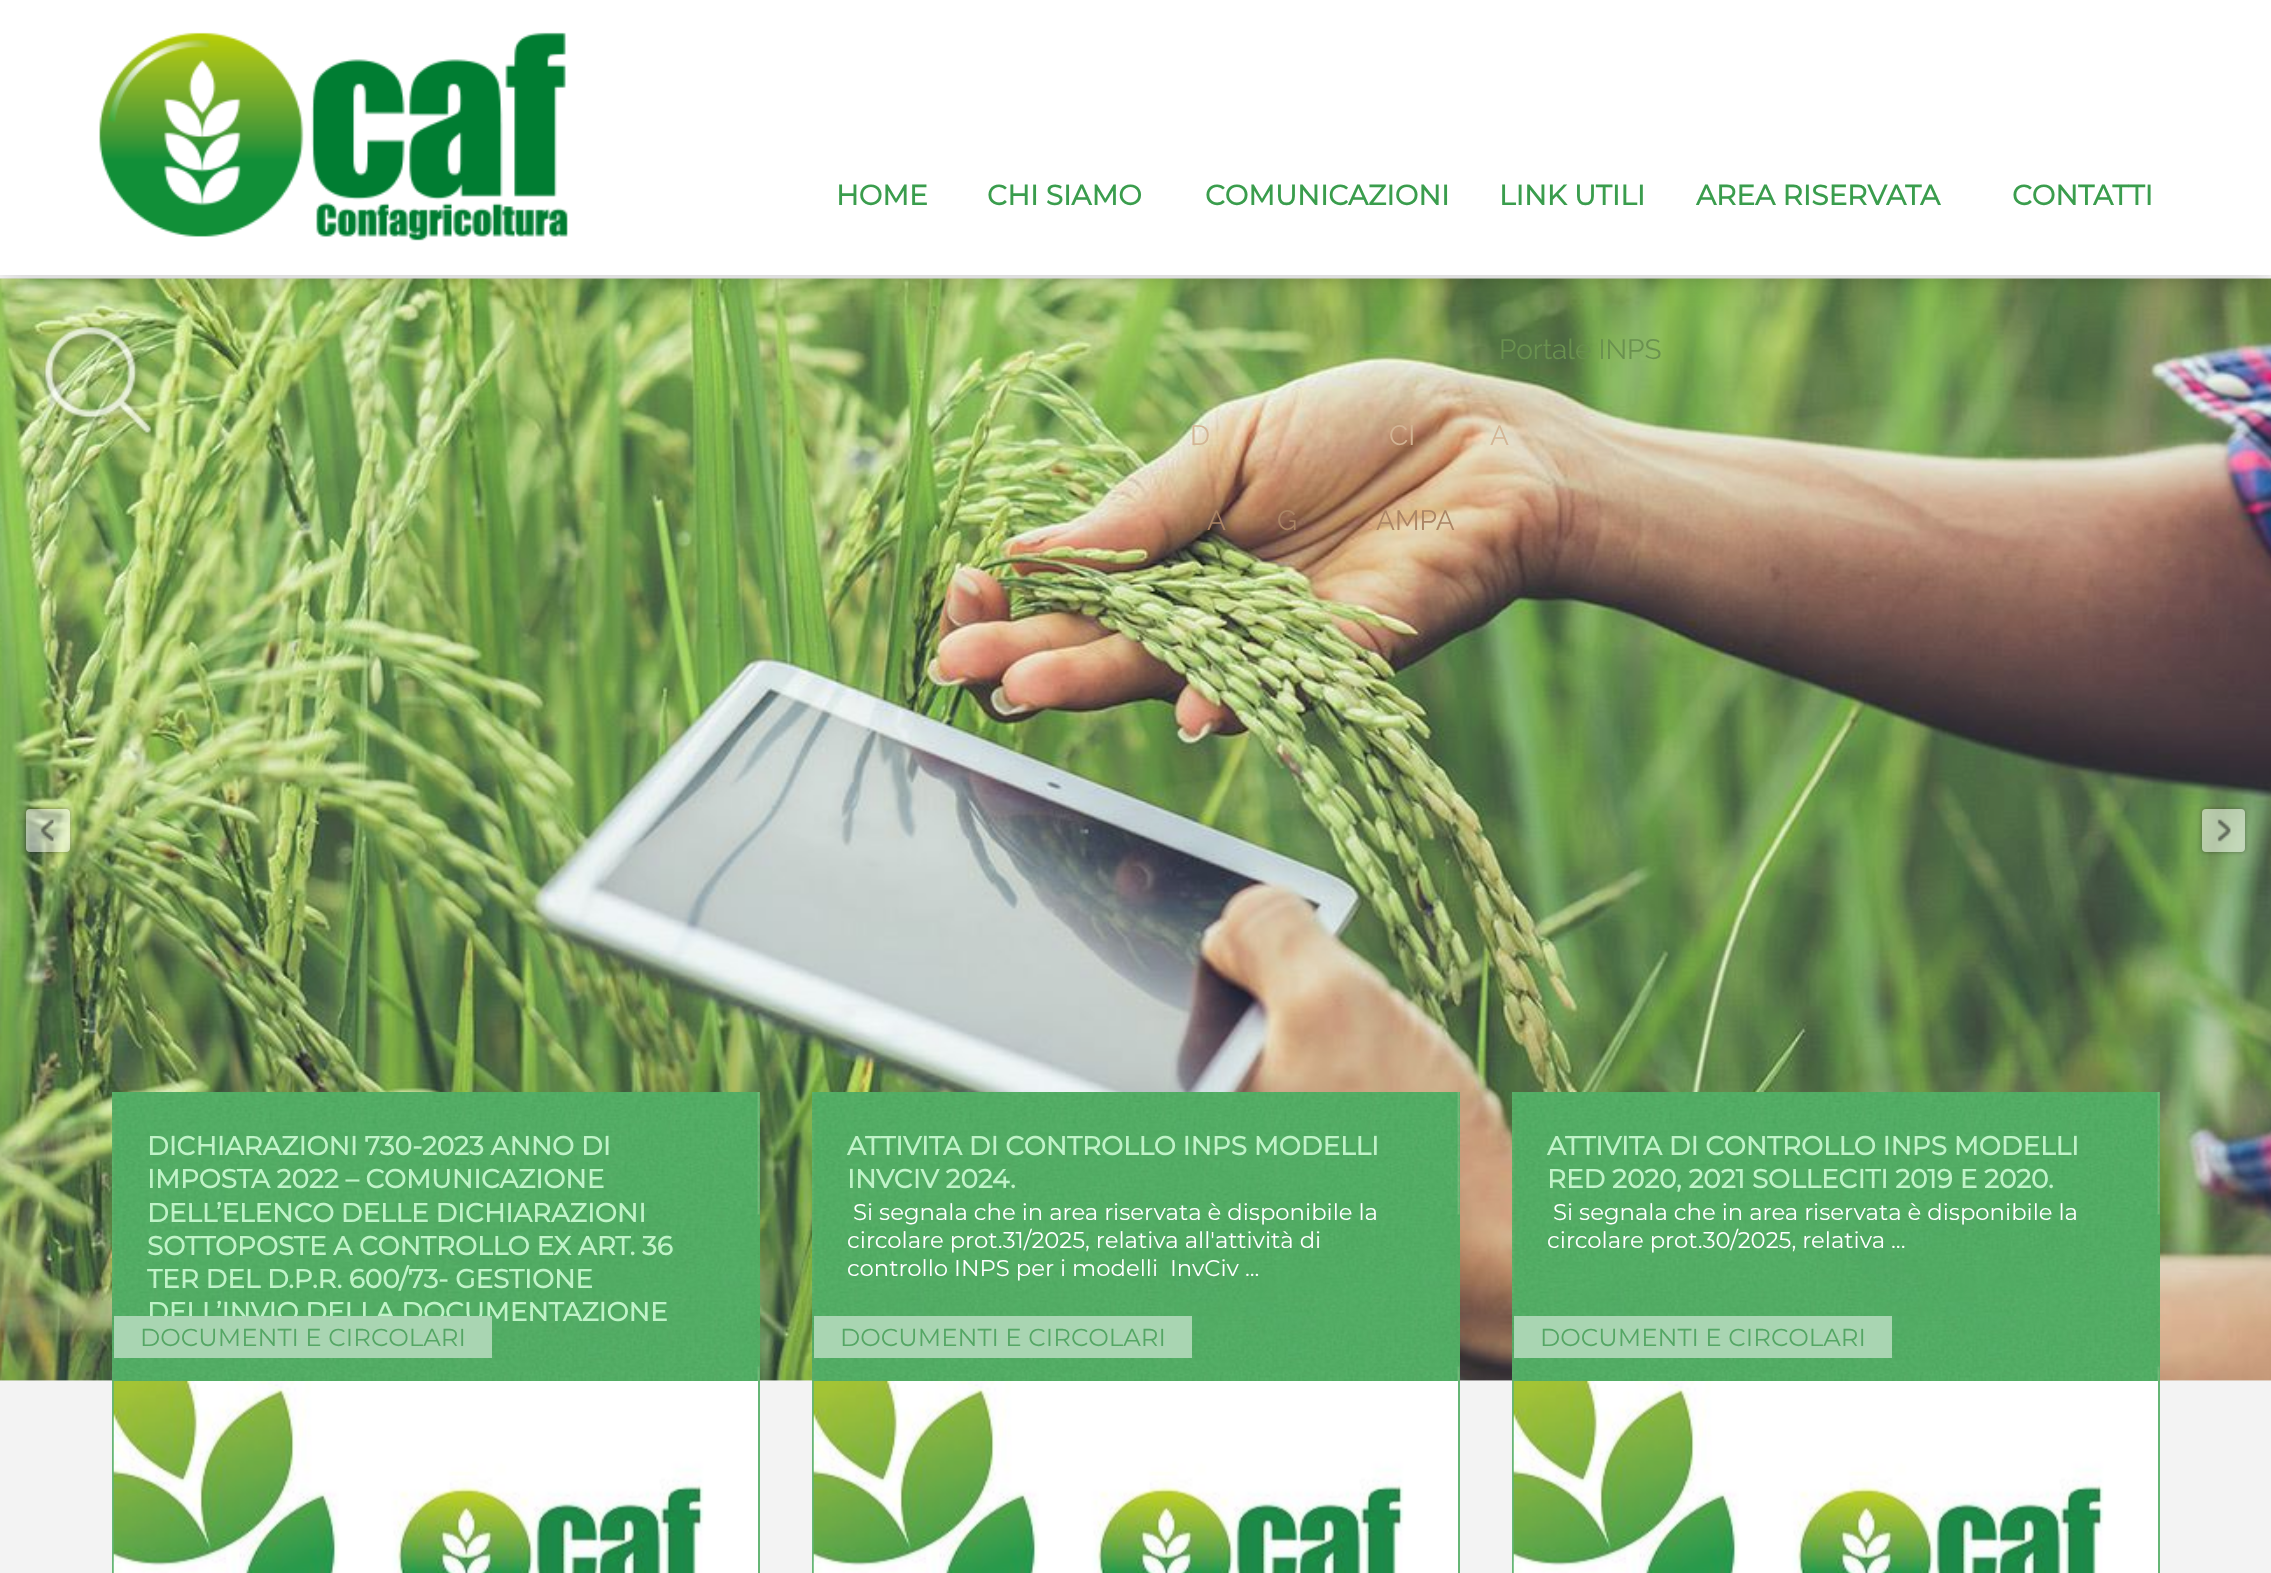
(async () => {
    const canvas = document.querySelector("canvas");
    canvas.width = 2271;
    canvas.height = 1573;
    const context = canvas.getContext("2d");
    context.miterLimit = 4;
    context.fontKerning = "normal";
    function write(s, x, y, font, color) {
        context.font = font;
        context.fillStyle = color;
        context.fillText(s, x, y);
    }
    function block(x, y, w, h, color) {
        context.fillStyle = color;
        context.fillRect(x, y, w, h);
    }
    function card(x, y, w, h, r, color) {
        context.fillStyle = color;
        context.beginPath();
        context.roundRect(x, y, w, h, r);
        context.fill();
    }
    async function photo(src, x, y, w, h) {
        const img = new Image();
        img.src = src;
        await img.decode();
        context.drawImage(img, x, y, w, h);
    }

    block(0, 0, 2271, 1573, "rgb(255, 255, 255)");
    block(0, 278, 2271, 1103, "rgb(238, 238, 238)");
    await photo("media/3.png", 1121, 815, 29, 29);
    await photo("media/4.png", 0, 278, 2271, 1103);
    context.save();
    context.beginPath();
    context.moveTo(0, 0);
    context.lineTo(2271, 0);
    context.lineTo(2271, 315);
    context.lineTo(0, 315);
    context.closePath();
    context.moveTo(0, 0);
    context.lineTo(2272, 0);
    context.lineTo(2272, 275);
    context.lineTo(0, 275);
    context.closePath();
    context.clip("evenodd");
    context.fillStyle = "rgba(0, 0, 0, 0.3)";
    context.filter = "blur(13px)";
    context.beginPath();
    context.rect(0, 0, 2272, 275);
    context.fill();
    context.filter = "none";
    context.restore();
    block(0, 274, 2271, 1, "rgba(255, 255, 255, 0.7)");
    block(7, 275, 2258, 2, "rgba(255, 255, 255, 0.1)");
    await photo("media/1.png", 99, 32, 469, 209);
    await photo("media/2.png", 44, 325, 112, 113);
    write("HOME", 836, 205, "bold 28px Montserrat", "rgb(58, 157, 77)");
    write("CHI SIAMO", 987, 205, "bold 28px Montserrat", "rgb(58, 157, 77)");
    write("COMUNICAZIONI", 1205, 205, "bold 28px Montserrat", "rgb(58, 157, 77)");
    write("D", 1190, 445, "28px Raleway", "rgb(211, 181, 149)");
    write("CI", 1389, 445, "28px Raleway", "rgb(211, 181, 149)");
    write("A", 1490, 445, "28px Raleway", "rgb(211, 181, 149)");
    write("A", 1207, 530, "28px Raleway", "rgb(171, 133, 101)");
    write("G", 1277, 530, "28px Raleway", "rgb(171, 133, 101)");
    write("AMPA", 1376, 530, "28px Raleway", "rgb(171, 133, 101)");
    write("LINK UTILI", 1499, 205, "bold 28px Montserrat", "rgb(58, 157, 77)");
    write("Portale INPS", 1499, 359, "28px Raleway", "rgb(106, 145, 79)");
    write("AREA RISERVATA", 1696, 205, "bold 28px Montserrat", "rgb(58, 157, 77)");
    write("CONTATTI", 2012, 205, "bold 28px Montserrat", "rgb(58, 157, 77)");
    context.save();
    context.beginPath();
    context.moveTo(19, 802);
    context.lineTo(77, 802);
    context.lineTo(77, 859);
    context.lineTo(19, 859);
    context.closePath();
    context.moveTo(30, 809);
    context.lineTo(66, 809);
    context.bezierCurveTo(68, 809, 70, 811, 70, 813);
    context.lineTo(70, 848);
    context.bezierCurveTo(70, 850, 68, 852, 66, 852);
    context.lineTo(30, 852);
    context.bezierCurveTo(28, 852, 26, 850, 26, 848);
    context.lineTo(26, 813);
    context.bezierCurveTo(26, 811, 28, 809, 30, 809);
    context.closePath();
    context.clip("evenodd");
    context.fillStyle = "rgba(0, 0, 0, 0.35)";
    context.filter = "blur(2px)";
    context.beginPath();
    context.roundRect(26, 809, 44, 43, 4);
    context.fill();
    context.filter = "none";
    context.restore();
    card(26, 809, 44, 43, 4, "rgba(255, 255, 255, 0.5)");
    await photo("media/5.png", 40, 819, 14, 23);
    context.save();
    context.beginPath();
    context.moveTo(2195, 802);
    context.lineTo(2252, 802);
    context.lineTo(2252, 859);
    context.lineTo(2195, 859);
    context.closePath();
    context.moveTo(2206, 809);
    context.lineTo(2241, 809);
    context.bezierCurveTo(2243, 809, 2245, 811, 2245, 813);
    context.lineTo(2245, 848);
    context.bezierCurveTo(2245, 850, 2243, 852, 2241, 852);
    context.lineTo(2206, 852);
    context.bezierCurveTo(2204, 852, 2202, 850, 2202, 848);
    context.lineTo(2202, 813);
    context.bezierCurveTo(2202, 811, 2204, 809, 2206, 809);
    context.closePath();
    context.clip("evenodd");
    context.fillStyle = "rgba(0, 0, 0, 0.35)";
    context.filter = "blur(2px)";
    context.beginPath();
    context.roundRect(2202, 809, 43, 43, 4);
    context.fill();
    context.filter = "none";
    context.restore();
    card(2202, 809, 43, 43, 4, "rgba(255, 255, 255, 0.5)");
    await photo("media/6.png", 2217, 819, 14, 23);
    block(0, 1381, 2271, 192, "rgb(243, 243, 243)");
    block(114, 1381, 644, 192, "rgb(255, 255, 255)");
    block(759, 1092, 1, 289, "rgb(83, 173, 101)");
    await photo("media/7.png", 112, 1092, 648, 289);
    write("DICHIARAZIONI 730-2023 ANNO DI", 147, 1155, "bold 26.25px Montserrat", "rgb(192, 243, 200)");
    write("IMPOSTA 2022 – COMUNICAZIONE", 147, 1188, "bold 26.25px Montserrat", "rgb(192, 243, 200)");
    write("DELL’ELENCO DELLE DICHIARAZIONI", 147, 1222, "bold 26.25px Montserrat", "rgb(192, 243, 200)");
    write("SOTTOPOSTE A CONTROLLO EX ART. 36", 147, 1255, "bold 26.25px Montserrat", "rgb(192, 243, 200)");
    write("TER DEL D.P.R. 600/73- GESTIONE", 147, 1288, "bold 26.25px Montserrat", "rgb(192, 243, 200)");
    write("DELL’INVIO DELLA DOCUMENTAZIONE", 147, 1321, "bold 26.25px Montserrat", "rgb(192, 243, 200)");
    block(114, 1316, 378, 42, "rgb(169, 213, 178)");
    write("DOCUMENTI E CIRCOLARI", 140, 1346, "24.5px Montserrat", "rgb(84, 166, 100)");
    block(758, 1381, 2, 192, "rgb(101, 182, 117)");
    block(112, 1381, 2, 192, "rgb(101, 182, 117)");
    await photo("media/8.png", 113, 1381, 591, 192);
    block(814, 1381, 644, 192, "rgb(255, 255, 255)");
    block(1459, 1092, 1, 289, "rgb(83, 173, 101)");
    await photo("media/7.png", 812, 1092, 648, 289);
    write("ATTIVITA DI CONTROLLO INPS MODELLI", 847, 1155, "bold 26.25px Montserrat", "rgb(192, 243, 200)");
    write("INVCIV 2024.", 847, 1188, "bold 26.25px Montserrat", "rgb(192, 243, 200)");
    write("Si segnala che in area riservata è disponibile la", 853, 1220, "22.75px Montserrat", "rgb(255, 255, 255)");
    write("circolare prot.31/2025, relativa all'attività di", 847, 1248, "22.75px Montserrat", "rgb(255, 255, 255)");
    write("controllo INPS per i modelli  InvCiv ...", 847, 1276, "22.75px Montserrat", "rgb(255, 255, 255)");
    block(814, 1316, 378, 42, "rgb(169, 213, 178)");
    write("DOCUMENTI E CIRCOLARI", 840, 1346, "24.5px Montserrat", "rgb(84, 166, 100)");
    block(1458, 1381, 2, 192, "rgb(101, 182, 117)");
    block(812, 1381, 2, 192, "rgb(101, 182, 117)");
    await photo("media/8.png", 813, 1381, 591, 192);
    block(1514, 1381, 644, 192, "rgb(255, 255, 255)");
    block(2159, 1092, 1, 289, "rgb(83, 173, 101)");
    await photo("media/7.png", 1512, 1092, 648, 289);
    write("ATTIVITA DI CONTROLLO INPS MODELLI", 1547, 1155, "bold 26.25px Montserrat", "rgb(192, 243, 200)");
    write("RED 2020, 2021 SOLLECITI 2019 E 2020.", 1547, 1188, "bold 26.25px Montserrat", "rgb(192, 243, 200)");
    write("Si segnala che in area riservata è disponibile la", 1553, 1220, "22.75px Montserrat", "rgb(255, 255, 255)");
    write("circolare prot.30/2025, relativa ...", 1547, 1248, "22.75px Montserrat", "rgb(255, 255, 255)");
    block(1514, 1316, 378, 42, "rgb(169, 213, 178)");
    write("DOCUMENTI E CIRCOLARI", 1540, 1346, "24.5px Montserrat", "rgb(84, 166, 100)");
    block(2158, 1381, 2, 192, "rgb(101, 182, 117)");
    block(1512, 1381, 2, 192, "rgb(101, 182, 117)");
    await photo("media/8.png", 1513, 1381, 591, 192);
})();
